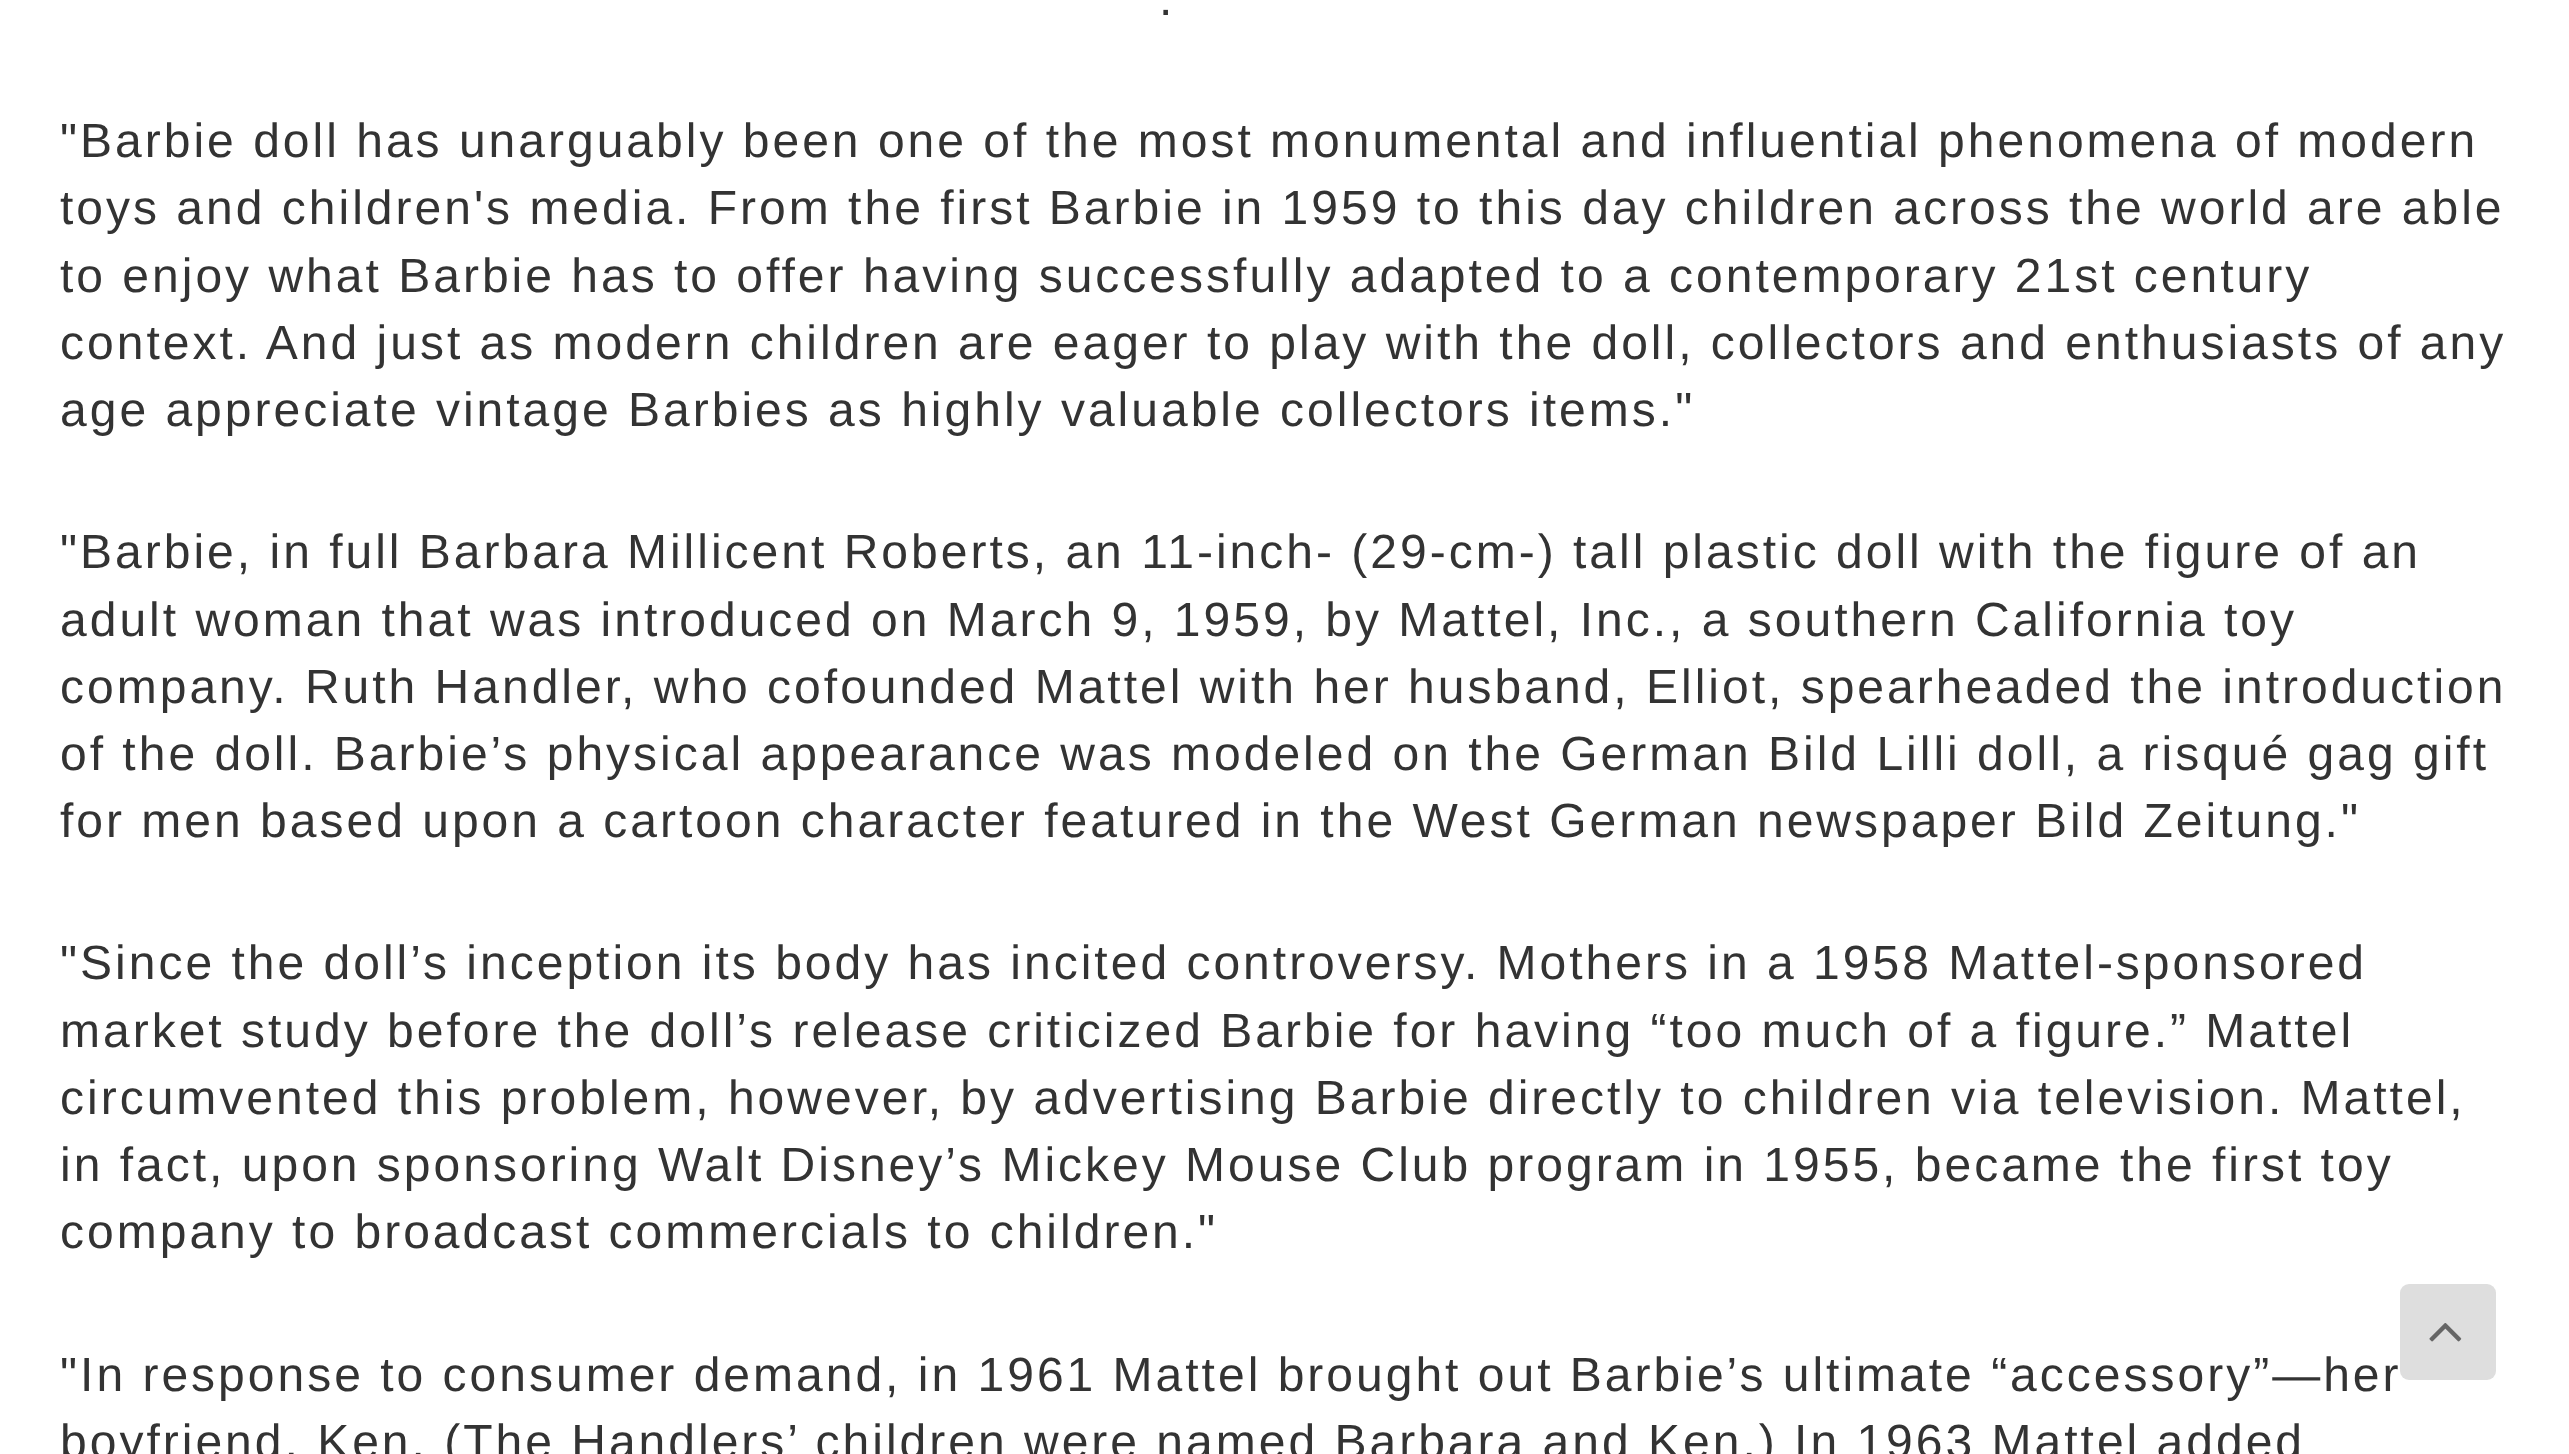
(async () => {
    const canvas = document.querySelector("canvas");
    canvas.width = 2569;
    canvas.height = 1454;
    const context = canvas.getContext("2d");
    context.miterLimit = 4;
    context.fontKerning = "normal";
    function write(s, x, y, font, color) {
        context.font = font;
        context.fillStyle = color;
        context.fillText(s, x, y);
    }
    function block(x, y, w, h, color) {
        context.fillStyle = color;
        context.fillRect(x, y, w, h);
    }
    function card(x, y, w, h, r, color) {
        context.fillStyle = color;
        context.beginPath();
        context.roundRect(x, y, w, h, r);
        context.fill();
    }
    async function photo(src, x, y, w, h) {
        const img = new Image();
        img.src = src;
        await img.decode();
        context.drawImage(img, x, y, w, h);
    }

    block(0, 0, 2569, 1454, "rgb(255, 255, 255)");
    context.letterSpacing = "3px";
    write(".", 1159, 15, "48px Liberation Sans", "rgb(51, 51, 51)");
    write("\"Barbie doll has unarguably been one of the most monumental and influential phenomena of modern", 60, 157, "48px Liberation Sans", "rgb(51, 51, 51)");
    write("toys and children's media. From the first Barbie in 1959 to this day children across the world are able", 60, 224, "48px Liberation Sans", "rgb(51, 51, 51)");
    write("to enjoy what Barbie has to offer having successfully adapted to a contemporary 21st century", 60, 292, "48px Liberation Sans", "rgb(51, 51, 51)");
    write("context. And just as modern children are eager to play with the doll, collectors and enthusiasts of any", 60, 359, "48px Liberation Sans", "rgb(51, 51, 51)");
    write("age appreciate vintage Barbies as highly valuable collectors items.\"", 60, 426, "48px Liberation Sans", "rgb(51, 51, 51)");
    write("\"Barbie, in full Barbara Millicent Roberts, an 11-inch- (29-cm-) tall plastic doll with the figure of an", 60, 568, "48px Liberation Sans", "rgb(51, 51, 51)");
    write("adult woman that was introduced on March 9, 1959, by Mattel, Inc., a southern California toy", 60, 636, "48px Liberation Sans", "rgb(51, 51, 51)");
    write("company. Ruth Handler, who cofounded Mattel with her husband, Elliot, spearheaded the introduction", 60, 703, "48px Liberation Sans", "rgb(51, 51, 51)");
    write("of the doll. Barbie’s physical appearance was modeled on the German Bild Lilli doll, a risqué gag gift", 60, 770, "48px Liberation Sans", "rgb(51, 51, 51)");
    write("for men based upon a cartoon character featured in the West German newspaper Bild Zeitung.\"", 60, 837, "48px Liberation Sans", "rgb(51, 51, 51)");
    write("\"Since the doll’s inception its body has incited controversy. Mothers in a 1958 Mattel-sponsored", 60, 979, "48px Liberation Sans", "rgb(51, 51, 51)");
    write("market study before the doll’s release criticized Barbie for having “too much of a figure.” Mattel", 60, 1047, "48px Liberation Sans", "rgb(51, 51, 51)");
    write("circumvented this problem, however, by advertising Barbie directly to children via television. Mattel,", 60, 1114, "48px Liberation Sans", "rgb(51, 51, 51)");
    write("in fact, upon sponsoring Walt Disney’s Mickey Mouse Club program in 1955, became the first toy", 60, 1181, "48px Liberation Sans", "rgb(51, 51, 51)");
    write("company to broadcast commercials to children.\"", 60, 1248, "48px Liberation Sans", "rgb(51, 51, 51)");
    write("\"In response to consumer demand, in 1961 Mattel brought out Barbie’s ultimate “accessory”—her", 60, 1391, "48px Liberation Sans", "rgb(51, 51, 51)");
    write("boyfriend, Ken. (The Handlers’ children were named Barbara and Ken.) In 1963 Mattel added", 60, 1458, "48px Liberation Sans", "rgb(51, 51, 51)");
    card(2400, 1284, 96, 96, 9, "rgb(222, 222, 222)");
    await photo("media/1.png", 2429, 1323, 33, 19);
})();
